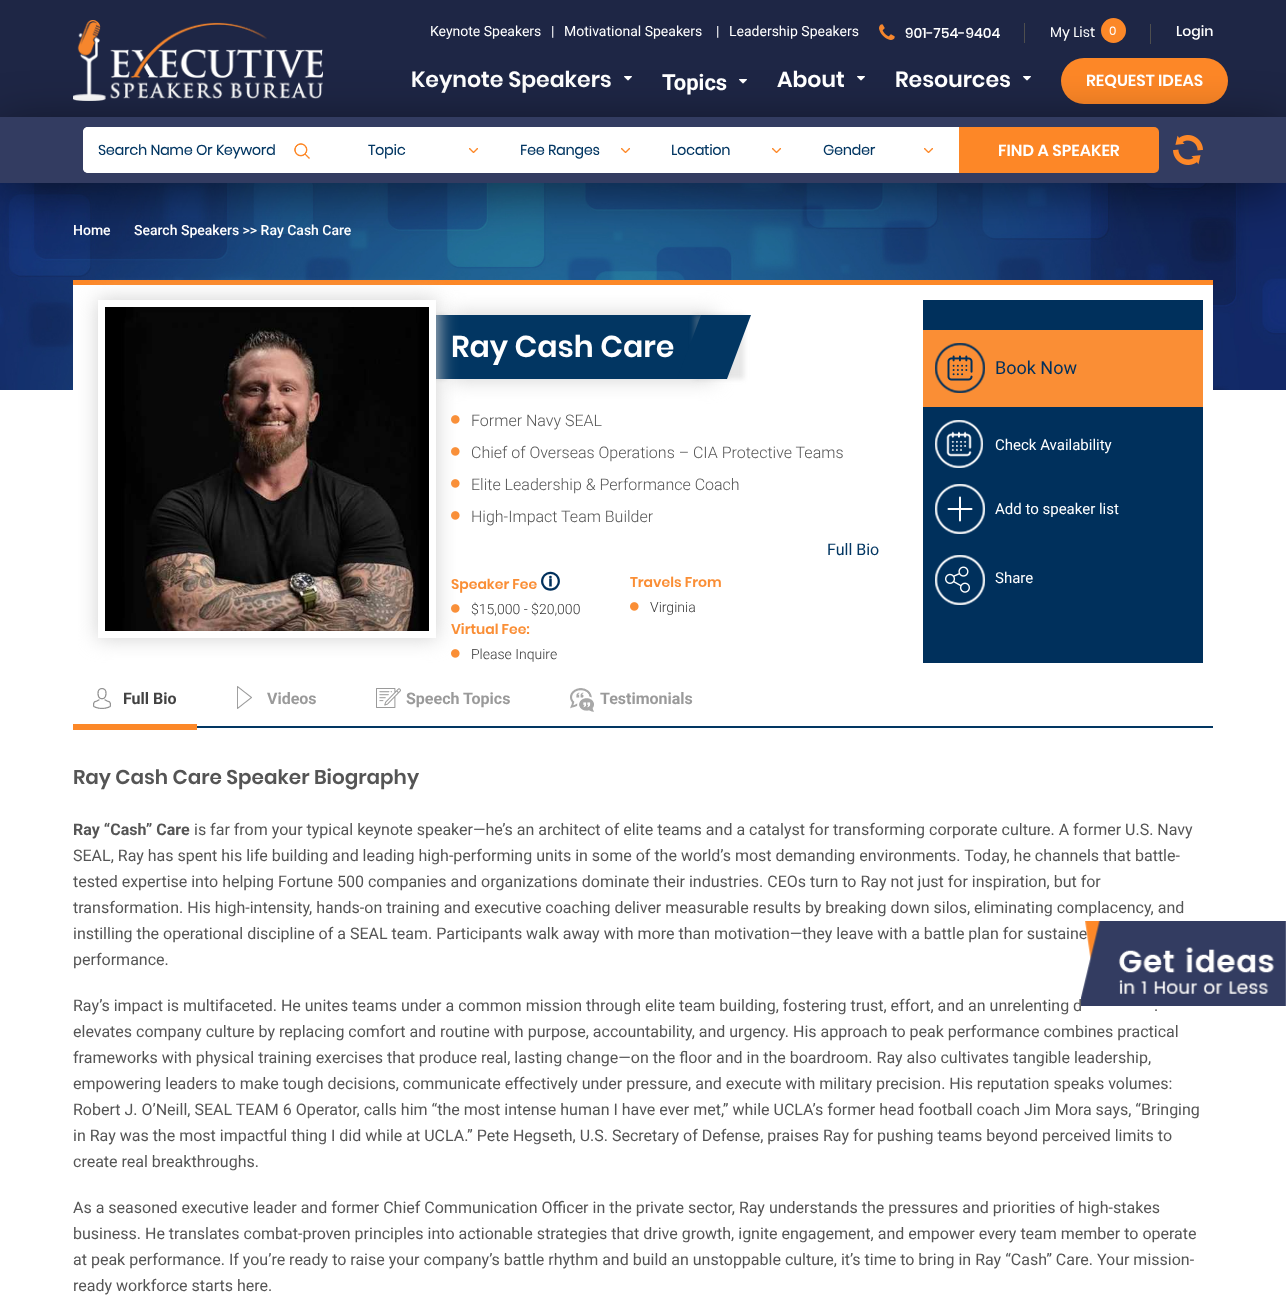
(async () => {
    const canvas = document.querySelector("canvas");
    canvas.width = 1286;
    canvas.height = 1315;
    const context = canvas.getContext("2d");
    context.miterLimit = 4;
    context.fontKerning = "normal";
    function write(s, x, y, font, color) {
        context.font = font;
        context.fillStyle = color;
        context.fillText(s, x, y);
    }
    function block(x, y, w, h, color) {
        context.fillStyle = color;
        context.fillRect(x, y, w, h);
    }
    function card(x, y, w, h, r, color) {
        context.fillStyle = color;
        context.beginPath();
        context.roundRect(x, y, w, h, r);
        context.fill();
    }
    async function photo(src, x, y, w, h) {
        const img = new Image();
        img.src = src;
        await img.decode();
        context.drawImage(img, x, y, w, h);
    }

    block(0, 0, 1286, 1315, "rgb(255, 255, 255)");
    block(0, 0, 1286, 117, "rgb(30, 38, 69)");
    await photo("media/1.png", 73, 20, 250, 81);
    write("Keynote Speakers", 430, 36, "14px Roboto", "rgb(255, 255, 255)");
    write("|", 551, 36, "14px Roboto", "rgb(255, 255, 255)");
    write("Motivational Speakers", 564, 36, "14px Roboto", "rgb(255, 255, 255)");
    write("|", 716, 36, "14px Roboto", "rgb(255, 255, 255)");
    write("Leadership Speakers", 729, 36, "14px Roboto", "rgb(255, 255, 255)");
    await photo("media/2.png", 879, 24, 16, 16);
    write("901-754-9404", 905, 38, "500 14px Poppins", "rgb(255, 255, 255)");
    block(1024, 23, 1, 20, "rgb(78, 78, 78)");
    write("My List", 1050, 37, "14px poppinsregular", "rgb(255, 255, 255)");
    context.fillStyle = "rgb(252, 136, 40)";
    context.beginPath();
    context.arc(1113.5, 30.5, 12.5, 0, Math.PI * 2);
    context.fill();
    write("0", 1109, 35, "12px poppinsregular", "rgb(255, 255, 255)");
    block(1150, 24, 1, 20, "rgb(78, 78, 78)");
    write("Login", 1176, 36, "500 14px Poppins", "rgb(255, 255, 255)");
    write("Keynote Speakers", 411, 87, "600 22px Poppins", "rgb(255, 255, 255)");
    card(1061, 58, 167, 46, 23, "rgb(253, 135, 39)");
    await photo("media/8.png", 0, 183, 1286, 207);
    context.fillStyle = "rgba(0, 0, 0, 0.5)";
    context.filter = "blur(25px)";
    context.beginPath();
    context.rect(0, 127, 1286, 66);
    context.fill();
    context.filter = "none";
    await photo("media/3.png", 624, 76, 8, 5);
    write("Topics", 662, 90, "bold 22px Roboto", "rgb(255, 255, 255)");
    await photo("media/4.png", 739, 79, 8, 5);
    write("About", 777, 87, "600 22px Poppins", "rgb(255, 255, 255)");
    await photo("media/3.png", 857, 76, 8, 5);
    write("Resources", 895, 87, "600 22px Poppins", "rgb(255, 255, 255)");
    await photo("media/3.png", 1023, 76, 8, 5);
    write("REQUEST IDEAS", 1086, 86, "600 16px Poppins", "rgb(255, 255, 255)");
    block(0, 117, 1286, 66, "rgb(51, 60, 97)");
    context.fillStyle = "rgb(255, 255, 255)";
    context.beginPath();
    context.roundRect(83, 127, 250, 46, [5, 0, 0, 5]);
    context.fill();
    card(83, 127, 210, 46, 5, "rgb(255, 255, 255)");
    write("Search Name Or Keyword", 98, 155, "bold 14px Poppins", "rgb(2, 54, 98)");
    await photo("media/5.png", 294, 143, 16, 16);
    block(333, 127, 626, 46, "rgb(255, 255, 255)");
    write("Topic", 368, 155, "bold 14px Poppins", "rgb(2, 54, 98)");
    await photo("media/6.png", 469, 148, 9, 5);
    write("Fee Ranges", 520, 155, "bold 14px Poppins", "rgb(2, 54, 98)");
    await photo("media/6.png", 621, 148, 9, 5);
    write("Location", 671, 155, "bold 14px Poppins", "rgb(2, 54, 98)");
    await photo("media/6.png", 772, 148, 9, 5);
    write("Gender", 823, 155, "bold 14px Poppins", "rgb(2, 54, 98)");
    await photo("media/6.png", 924, 148, 9, 5);
    context.fillStyle = "rgb(253, 135, 39)";
    context.beginPath();
    context.roundRect(959, 127, 200, 46, [0, 5, 5, 0]);
    context.fill();
    write("FIND A SPEAKER", 998, 156, "600 16px Poppins", "rgb(255, 255, 255)");
    await photo("media/7.png", 1173, 135, 30, 30);
    write("Home", 73, 235, "500 14px Roboto", "rgb(255, 255, 255)");
    write("Search Speakers >> Ray Cash Care", 134, 235, "500 14px Roboto", "rgb(255, 255, 255)");
    block(73, 285, 1140, 105, "rgb(255, 255, 255)");
    block(73, 280, 1140, 5, "rgb(252, 136, 40)");
    context.fillStyle = "rgb(212, 212, 212)";
    context.filter = "blur(10px)";
    context.beginPath();
    context.rect(450, 314, 265, 66);
    context.fill();
    context.filter = "none";
    block(451, 315, 250, 64, "rgb(2, 54, 98)");
    context.fillStyle = "rgba(171, 171, 171, 0.5)";
    context.filter = "blur(2.5px)";
    context.beginPath();
    context.rect(396, 315, 50, 64);
    context.fill();
    context.filter = "none";
    block(436, 315, 15, 64, "rgb(2, 54, 98)");
    await photo("media/10.png", 451, 415, 9, 9);
    await photo("media/10.png", 451, 447, 9, 9);
    await photo("media/10.png", 451, 479, 9, 9);
    await photo("media/10.png", 451, 511, 9, 9);
    await photo("media/10.png", 451, 604, 9, 9);
    await photo("media/10.png", 451, 649, 9, 9);
    context.fillStyle = "rgb(212, 212, 212)";
    context.filter = "blur(10px)";
    context.beginPath();
    context.rect(97, 299, 340, 340);
    context.fill();
    context.filter = "none";
    block(98, 300, 338, 338, "rgb(255, 255, 255)");
    await photo("media/9.png", 105, 307, 324, 324);
    write("Ray Cash Care", 451, 357, "600 30px Poppins", "rgb(255, 255, 255)");
    context.fillStyle = "rgba(171, 171, 171, 0.3)";
    context.filter = "blur(2.5px)";
    context.beginPath();
    context.rect(694, 315, 50, 64);
    context.fill();
    context.filter = "none";
    context.fillStyle = "rgb(2, 54, 98)";
    context.beginPath();
    context.moveTo(701, 315);
    context.lineTo(751, 315);
    context.lineTo(727, 379);
    context.lineTo(677, 379);
    context.closePath();
    context.fill();
    write("Former Navy SEAL", 471, 426, "300 16px Roboto", "rgb(85, 85, 85)");
    write("Chief of Overseas Operations – CIA Protective Teams", 471, 458, "300 16px Roboto", "rgb(85, 85, 85)");
    write("Elite Leadership & Performance Coach", 471, 490, "300 16px Roboto", "rgb(85, 85, 85)");
    write("High-Impact Team Builder", 471, 522, "300 16px Roboto", "rgb(85, 85, 85)");
    write("Full Bio", 827, 555, "16px Roboto", "rgb(2, 54, 98)");
    write("Speaker Fee", 451, 589, "600 14px Poppins", "rgb(250, 142, 53)");
    write("🛈", 540, 589, "bold 20px 'Noto Sans Symbols 2'", "rgb(0, 48, 92)");
    write("$15,000 - $20,000", 471, 614, "300 14px Roboto", "rgb(51, 51, 51)");
    write("Virtual Fee:", 451, 634, "600 14px Poppins", "rgb(250, 142, 53)");
    write("Please Inquire", 471, 659, "300 14px Roboto", "rgb(51, 51, 51)");
    write("Travels From", 630, 587, "600 14px Poppins", "rgb(250, 142, 53)");
    await photo("media/10.png", 630, 602, 9, 9);
    write("Virginia", 650, 612, "300 14px Roboto", "rgb(51, 51, 51)");
    block(923, 300, 280, 363, "rgb(0, 48, 92)");
    block(923, 330, 280, 77, "rgb(250, 142, 53)");
    await photo("media/11.png", 935, 343, 50, 50);
    write("Book Now", 995, 374, "18px Roboto", "rgb(0, 48, 92)");
    await photo("media/12.png", 935, 420, 48, 48);
    write("Check Availability", 995, 450, "15px Roboto", "rgb(255, 255, 255)");
    await photo("media/13.png", 935, 484, 50, 50);
    write("Add to speaker list", 995, 514, "15px Roboto", "rgb(255, 255, 255)");
    await photo("media/14.png", 935, 555, 50, 50);
    write("Share", 995, 583, "15px Roboto", "rgb(255, 255, 255)");
    await photo("media/15.png", 93, 688, 18, 21);
    write("Full Bio", 123, 704, "bold 16px Roboto", "rgb(66, 66, 66)");
    block(73, 724, 124, 6, "rgb(252, 136, 40)");
    await photo("media/16.png", 237, 686, 15, 23);
    write("Videos", 267, 704, "bold 16px Roboto", "rgb(154, 154, 154)");
    await photo("media/17.png", 376, 688, 25, 20);
    write("Speech Topics", 406, 704, "bold 16px Roboto", "rgb(154, 154, 154)");
    await photo("media/18.png", 570, 688, 24, 24);
    write("Testimonials", 600, 704, "bold 16px Roboto", "rgb(154, 154, 154)");
    block(197, 726, 1016, 2, "rgb(2, 54, 98)");
    write("Ray Cash Care Speaker Biography", 73, 784, "600 20px Poppins", "rgb(85, 85, 85)");
    write("Ray “Cash” Care", 73, 835, "bold 16px Roboto", "rgb(85, 85, 85)");
    write("is far from your typical keynote speaker—he’s an architect of elite teams and a catalyst for transforming corporate culture. A former U.S. Navy", 194, 835, "16px Roboto", "rgb(85, 85, 85)");
    write("SEAL, Ray has spent his life building and leading high-performing units in some of the world’s most demanding environments. Today, he channels that battle-", 73, 861, "16px Roboto", "rgb(85, 85, 85)");
    write("tested expertise into helping Fortune 500 companies and organizations dominate their industries. CEOs turn to Ray not just for inspiration, but for", 73, 887, "16px Roboto", "rgb(85, 85, 85)");
    write("transformation. His high-intensity, hands-on training and executive coaching deliver measurable results by breaking down silos, eliminating complacency, and", 73, 913, "16px Roboto", "rgb(85, 85, 85)");
    write("instilling the operational discipline of a SEAL team. Participants walk away with more than motivation—they leave with a battle plan for sustaine", 73, 939, "16px Roboto", "rgb(85, 85, 85)");
    write("performance.", 73, 965, "16px Roboto", "rgb(85, 85, 85)");
    write("Ray’s impact is multifaceted. He unites teams under a common mission through elite team building, fostering trust, effort, and an unrelenting d", 73, 1011, "16px Roboto", "rgb(85, 85, 85)");
    write(".", 1154, 1011, "16px Roboto", "rgb(85, 85, 85)");
    write("elevates company culture by replacing comfort and routine with purpose, accountability, and urgency. His approach to peak performance combines practical", 73, 1037, "16px Roboto", "rgb(85, 85, 85)");
    write("frameworks with physical training exercises that produce real, lasting change—on the floor and in the boardroom. Ray also cultivates tangible leadership,", 73, 1063, "16px Roboto", "rgb(85, 85, 85)");
    write("empowering leaders to make tough decisions, communicate effectively under pressure, and execute with military precision. His reputation speaks volumes:", 73, 1089, "16px Roboto", "rgb(85, 85, 85)");
    write("Robert J. O’Neill, SEAL TEAM 6 Operator, calls him “the most intense human I have ever met,” while UCLA’s former head football coach Jim Mora says, “Bringing", 73, 1115, "16px Roboto", "rgb(85, 85, 85)");
    write("in Ray was the most impactful thing I did while at UCLA.” Pete Hegseth, U.S. Secretary of Defense, praises Ray for pushing teams beyond perceived limits to", 73, 1141, "16px Roboto", "rgb(85, 85, 85)");
    write("create real breakthroughs.", 73, 1167, "16px Roboto", "rgb(85, 85, 85)");
    write("As a seasoned executive leader and former Chief Communication Officer in the private sector, Ray understands the pressures and priorities of high-stakes", 73, 1213, "16px Roboto", "rgb(85, 85, 85)");
    write("business. He translates combat-proven principles into actionable strategies that drive growth, ignite engagement, and empower every team member to operate", 73, 1239, "16px Roboto", "rgb(85, 85, 85)");
    write("at peak performance. If you’re ready to raise your company’s battle rhythm and build an unstoppable culture, it’s time to bring in Ray “Cash” Care. Your mission-", 73, 1265, "16px Roboto", "rgb(85, 85, 85)");
    write("ready workforce starts here.", 73, 1291, "16px Roboto", "rgb(85, 85, 85)");
    await photo("media/19.png", 1081, 921, 205, 85);
})();
